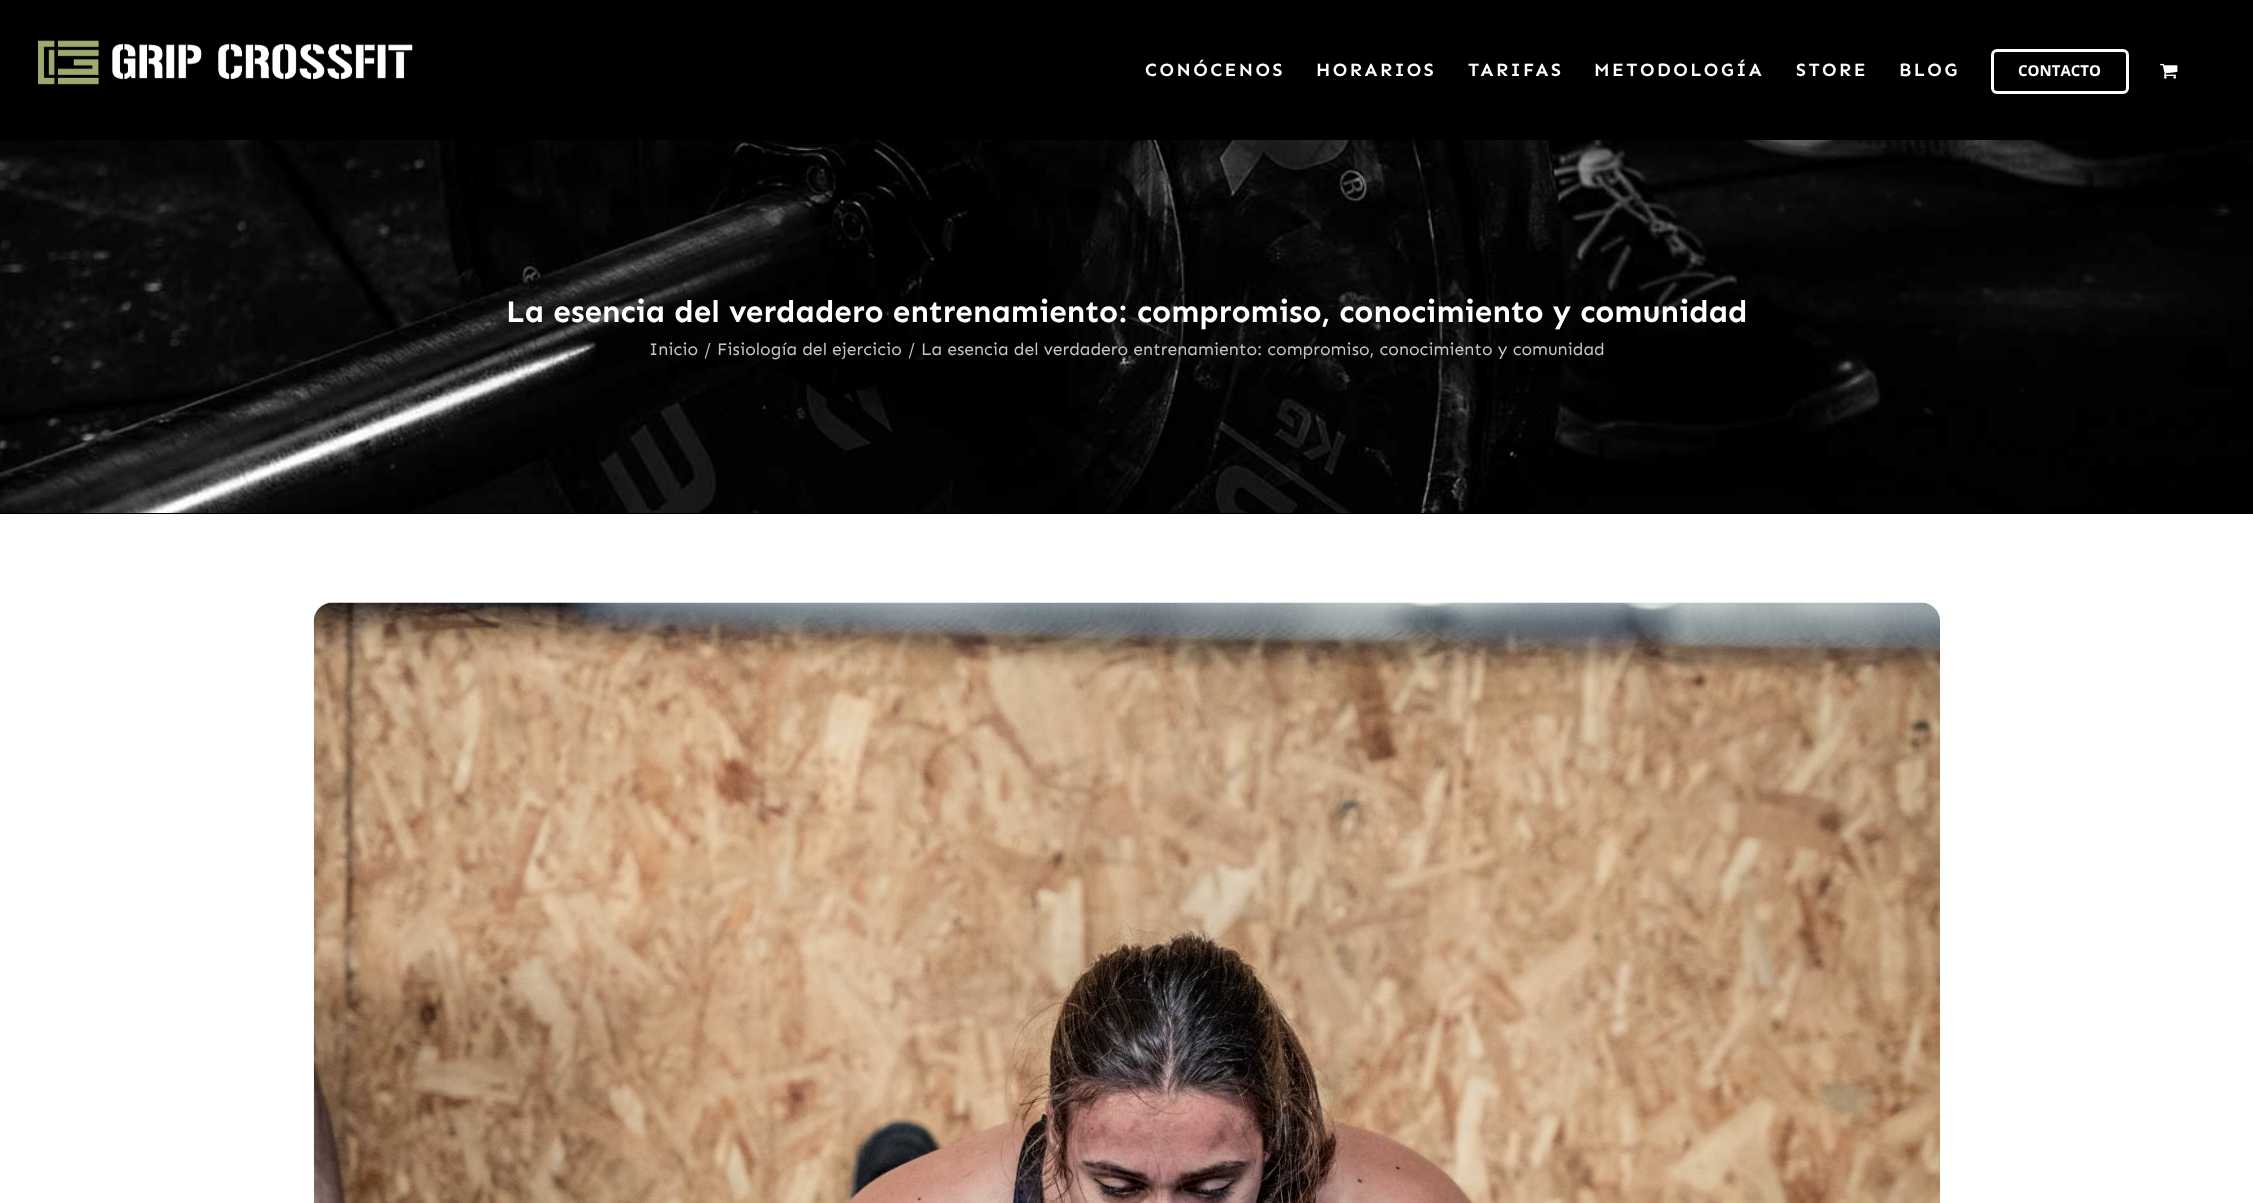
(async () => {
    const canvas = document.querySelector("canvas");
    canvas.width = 2253;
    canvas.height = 1203;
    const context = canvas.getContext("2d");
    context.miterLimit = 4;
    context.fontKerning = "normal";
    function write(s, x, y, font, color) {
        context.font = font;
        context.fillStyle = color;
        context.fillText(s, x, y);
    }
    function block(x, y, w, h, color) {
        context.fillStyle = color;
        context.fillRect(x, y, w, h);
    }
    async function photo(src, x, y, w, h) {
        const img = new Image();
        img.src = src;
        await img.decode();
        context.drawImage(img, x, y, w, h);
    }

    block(0, 0, 2253, 1203, "rgb(255, 255, 255)");
    await photo("media/3.png", 0, 140, 2253, 373);
    block(0, 139, 2253, 1, "rgb(0, 0, 0)");
    context.fillStyle = "rgba(0, 0, 0, 0.14)";
    context.filter = "blur(31px)";
    context.beginPath();
    context.rect(3, 15, 2248, 134);
    context.fill();
    context.filter = "none";
    block(0, 0, 2253, 139, "rgb(0, 0, 0)");
    await photo("media/1.png", 38, 40, 375, 45);
    context.letterSpacing = "2.5px";
    write("CONÓCENOS", 1145, 76, "600 18.75px Sen", "rgb(255, 255, 255)");
    write("HORARIOS", 1316, 76, "600 18.75px Sen", "rgb(255, 255, 255)");
    write("TARIFAS", 1468, 76, "600 18.75px Sen", "rgb(255, 255, 255)");
    write("METODOLOGÍA", 1594, 76, "600 18.75px Sen", "rgb(255, 255, 255)");
    write("STORE", 1796, 76, "600 18.75px Sen", "rgb(255, 255, 255)");
    write("BLOG", 1899, 76, "600 18.75px Sen", "rgb(255, 255, 255)");
    context.beginPath();
    context.roundRect(1992.5, 50.5, 135, 42, 4.5);
    context.strokeStyle = "rgb(255, 255, 255)";
    context.lineWidth = 3;
    context.stroke();
    context.letterSpacing = "0px";
    write("CONTACTO", 2018, 76, "bold 15px Open Sans", "rgb(255, 255, 255)");
    await photo("media/2.png", 2160, 63, 18, 16);
    block(0, 513, 2253, 1, "rgb(0, 0, 0)");
    write("La esencia del verdadero entrenamiento: compromiso, conocimiento y comunidad", 506, 322, "bold 31.25px Sen", "rgb(255, 255, 255)");
    write("Inicio", 649, 355, "17.5px Sen", "rgb(198, 198, 198)");
    write("/", 704, 355, "17.5px Sen", "rgb(198, 198, 198)");
    write("Fisiología del ejercicio", 717, 355, "17.5px Sen", "rgb(198, 198, 198)");
    write("/", 908, 355, "17.5px Sen", "rgb(198, 198, 198)");
    write("La esencia del verdadero entrenamiento: compromiso, conocimiento y comunidad", 921, 355, "17.5px Sen", "rgb(198, 198, 198)");
    await photo("media/4.png", 313, 602, 1627, 601);
})();
